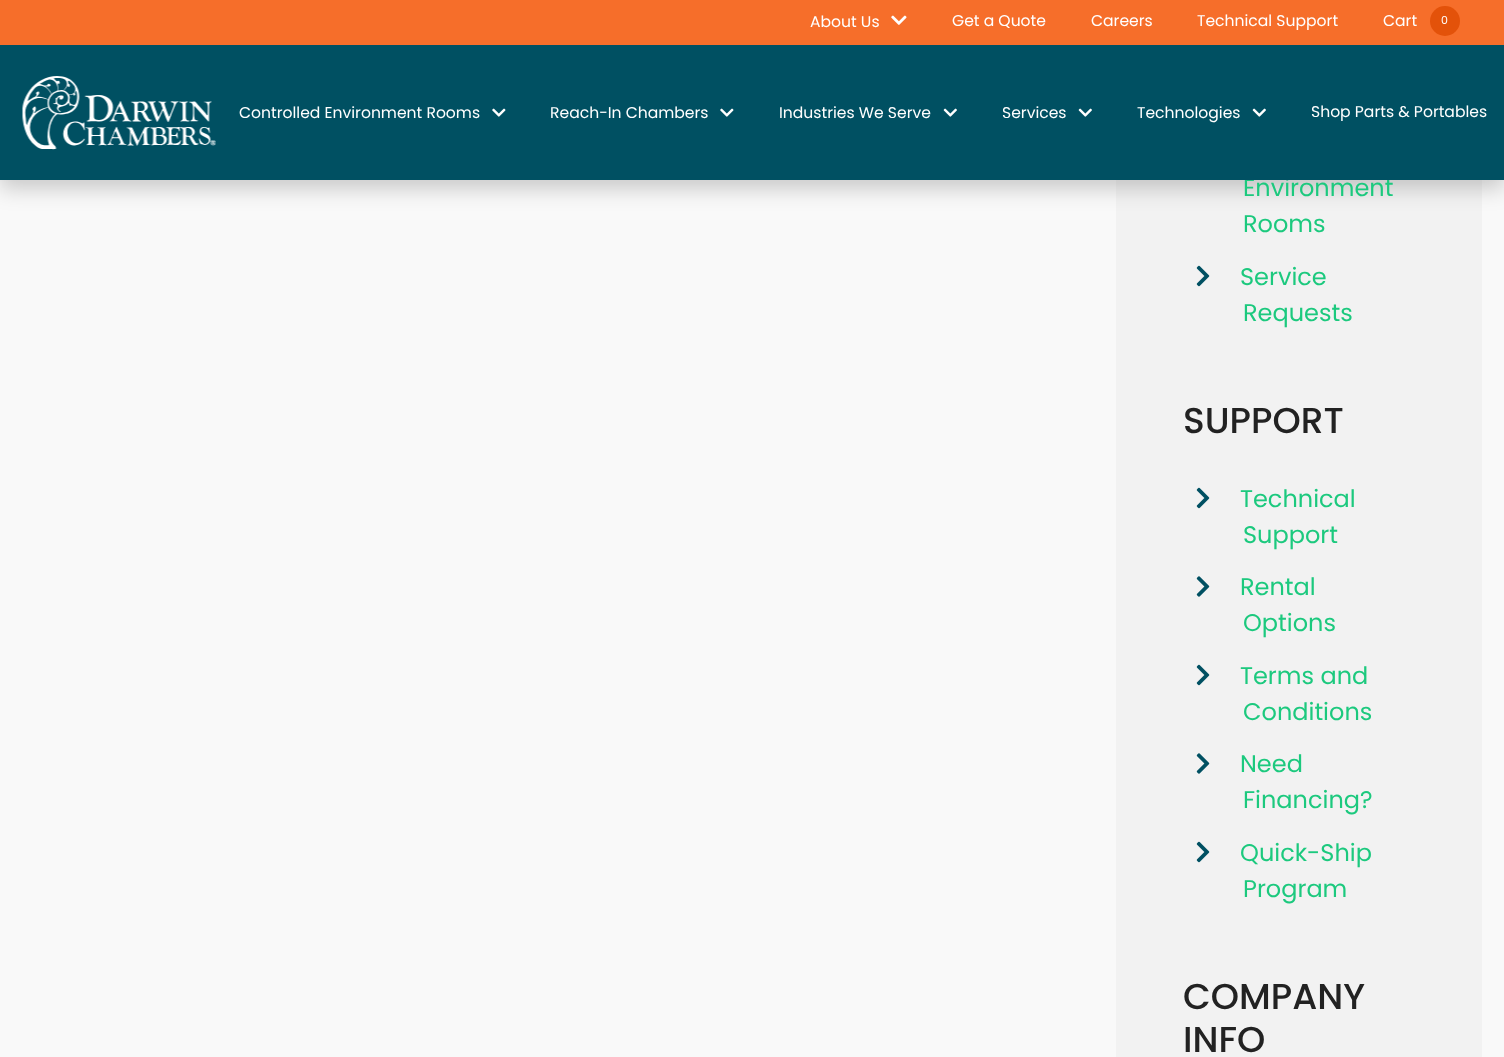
(async () => {
    const canvas = document.querySelector("canvas");
    canvas.width = 1504;
    canvas.height = 1057;
    const context = canvas.getContext("2d");
    context.miterLimit = 4;
    context.fontKerning = "normal";
    function write(s, x, y, font, color) {
        context.font = font;
        context.fillStyle = color;
        context.fillText(s, x, y);
    }
    function block(x, y, w, h, color) {
        context.fillStyle = color;
        context.fillRect(x, y, w, h);
    }
    async function photo(src, x, y, w, h) {
        const img = new Image();
        img.src = src;
        await img.decode();
        context.drawImage(img, x, y, w, h);
    }

    block(0, 0, 1504, 1057, "rgb(249, 249, 249)");
    block(1116, 180, 366, 877, "rgb(242, 242, 242)");
    context.fillStyle = "rgba(0, 0, 0, 0.2)";
    context.filter = "blur(11px)";
    context.beginPath();
    context.rect(0, 8, 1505, 180);
    context.fill();
    context.filter = "none";
    write("Environment", 1243, 196, "24px Poppins", "rgb(28, 201, 126)");
    block(0, 45, 1504, 135, "rgb(0, 80, 98)");
    block(0, 0, 1504, 45, "rgb(246, 110, 42)");
    write("About Us", 810, 27, "15.6px Poppins", "rgb(255, 255, 255)");
    await photo("media/1.png", 891, 15, 16, 10);
    write("Get a Quote", 952, 26, "15.6px Poppins", "rgb(255, 255, 255)");
    write("Careers", 1091, 26, "15.6px Poppins", "rgb(255, 255, 255)");
    write("Technical Support", 1197, 26, "15.6px Poppins", "rgb(255, 255, 255)");
    write("Cart", 1383, 26, "15.6px Poppins", "rgb(255, 255, 255)");
    context.fillStyle = "rgb(227, 82, 10)";
    context.beginPath();
    context.arc(1445, 21, 15, 0, Math.PI * 2);
    context.fill();
    write("0", 1441, 24, "11px Poppins", "rgb(255, 255, 255)");
    await photo("media/2.png", 22, 76, 194, 74);
    write("Controlled Environment Rooms", 239, 118, "15.6px Poppins", "rgb(255, 255, 255)");
    await photo("media/3.png", 492, 108, 14, 9);
    write("Reach-In Chambers", 550, 118, "15.6px Poppins", "rgb(255, 255, 255)");
    await photo("media/3.png", 720, 108, 14, 9);
    write("Industries We Serve", 779, 118, "15.6px Poppins", "rgb(255, 255, 255)");
    await photo("media/4.png", 943, 108, 14, 9);
    write("Services", 1002, 118, "15.6px Poppins", "rgb(255, 255, 255)");
    await photo("media/4.png", 1078, 108, 14, 9);
    write("Technologies", 1137, 118, "15.6px Poppins", "rgb(255, 255, 255)");
    await photo("media/4.png", 1252, 108, 14, 9);
    write("Shop Parts & Portables", 1311, 117, "15.6px Poppins", "rgb(255, 255, 255)");
    write("Rooms", 1243, 232, "24px Poppins", "rgb(28, 201, 126)");
    await photo("media/5.png", 1196, 265, 14, 22);
    write("Service", 1240, 285, "24px Poppins", "rgb(28, 201, 126)");
    write("Requests", 1243, 321, "24px Poppins", "rgb(28, 201, 126)");
    write("SUPPORT", 1183, 433, "500 36px Poppins", "rgb(34, 34, 34)");
    await photo("media/5.png", 1196, 487, 14, 22);
    write("Technical", 1240, 507, "24px Poppins", "rgb(28, 201, 126)");
    write("Support", 1243, 543, "24px Poppins", "rgb(28, 201, 126)");
    await photo("media/6.png", 1196, 576, 14, 21);
    write("Rental", 1240, 595, "24px Poppins", "rgb(28, 201, 126)");
    write("Options", 1243, 631, "24px Poppins", "rgb(28, 201, 126)");
    await photo("media/5.png", 1196, 664, 14, 22);
    write("Terms and", 1240, 684, "24px Poppins", "rgb(28, 201, 126)");
    write("Conditions", 1243, 720, "24px Poppins", "rgb(28, 201, 126)");
    await photo("media/6.png", 1196, 753, 14, 21);
    write("Need", 1240, 772, "24px Poppins", "rgb(28, 201, 126)");
    write("Financing?", 1243, 808, "24px Poppins", "rgb(28, 201, 126)");
    await photo("media/5.png", 1196, 841, 14, 22);
    write("Quick-Ship", 1240, 861, "24px Poppins", "rgb(28, 201, 126)");
    write("Program", 1243, 897, "24px Poppins", "rgb(28, 201, 126)");
    write("COMPANY", 1183, 1009, "500 36px Poppins", "rgb(34, 34, 34)");
    write("INFO", 1183, 1052, "500 36px Poppins", "rgb(34, 34, 34)");
})();
